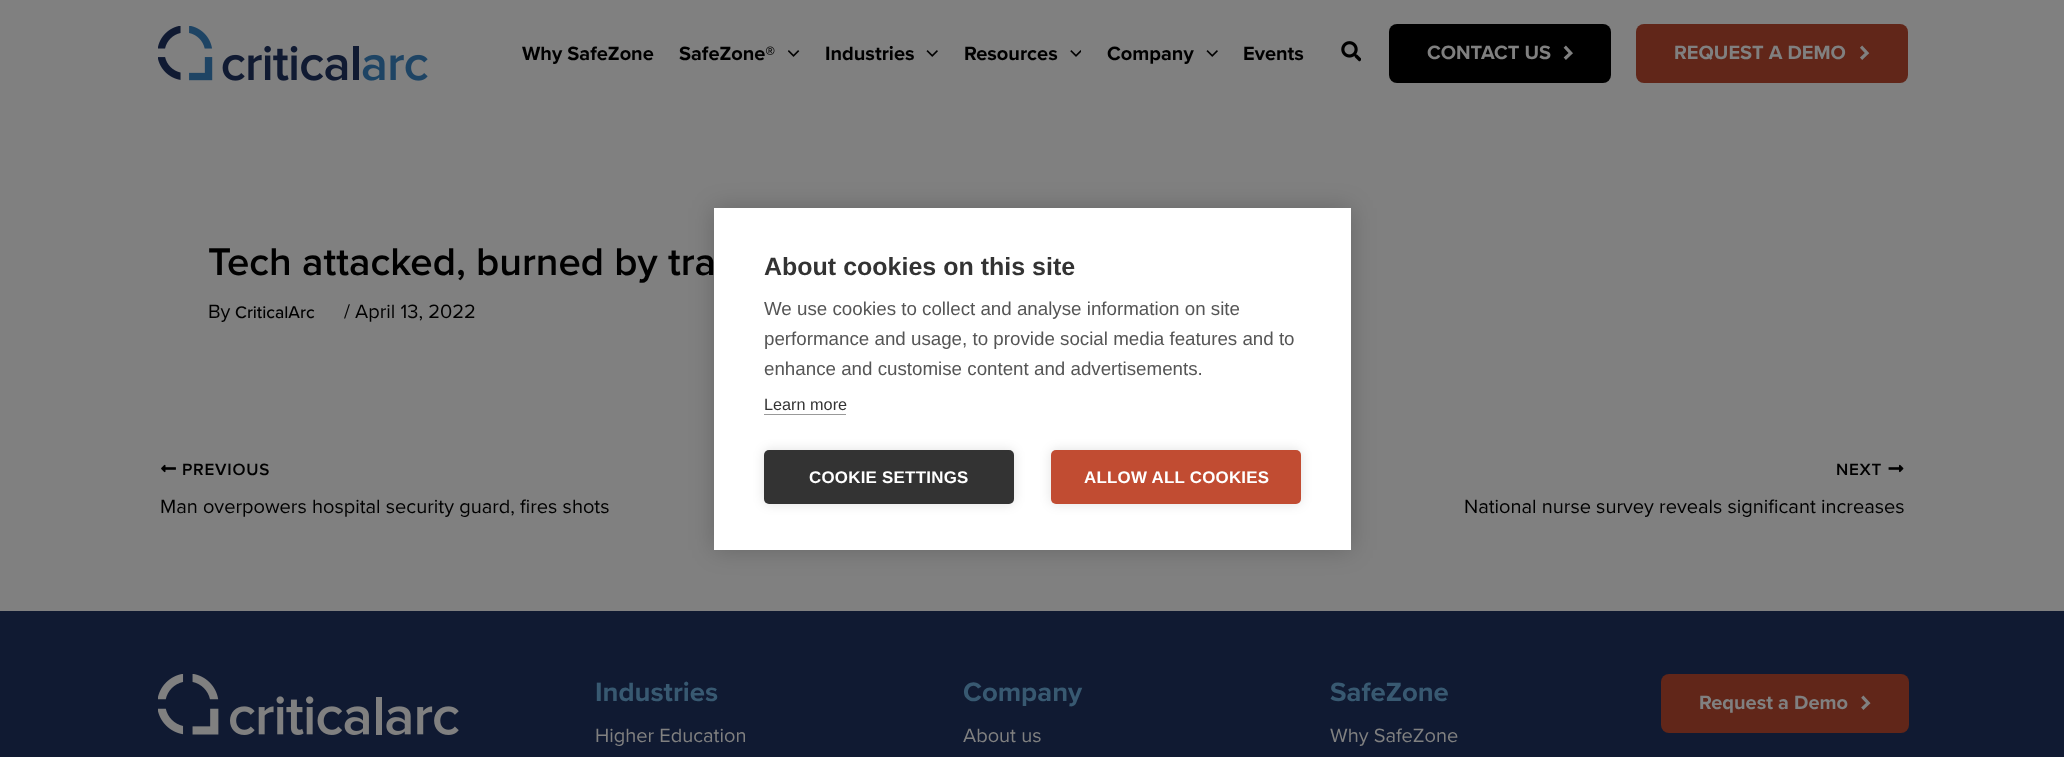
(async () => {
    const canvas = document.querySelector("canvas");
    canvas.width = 2064;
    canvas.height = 757;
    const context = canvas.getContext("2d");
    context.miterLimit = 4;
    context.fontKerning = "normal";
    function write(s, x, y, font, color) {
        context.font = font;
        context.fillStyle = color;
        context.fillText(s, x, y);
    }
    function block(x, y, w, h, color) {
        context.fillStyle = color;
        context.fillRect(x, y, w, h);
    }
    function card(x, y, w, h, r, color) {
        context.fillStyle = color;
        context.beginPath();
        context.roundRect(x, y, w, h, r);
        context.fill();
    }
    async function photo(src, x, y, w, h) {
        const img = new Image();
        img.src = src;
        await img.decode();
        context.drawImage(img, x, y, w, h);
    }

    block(0, 0, 2064, 757, "rgb(128, 128, 128)");
    await photo("media/1.png", 158, 26, 270, 55);
    write("Why SafeZone", 522, 60, "bold 20px Proxima Nova", "rgb(0, 0, 0)");
    write("SafeZone®", 679, 60, "bold 20px Proxima Nova", "rgb(0, 0, 0)");
    await photo("media/2.png", 788, 50, 12, 7);
    write("Industries", 825, 60, "bold 20px Proxima Nova", "rgb(0, 0, 0)");
    await photo("media/3.png", 926, 50, 12, 7);
    write("Resources", 964, 60, "bold 20px Proxima Nova", "rgb(0, 0, 0)");
    await photo("media/4.png", 1070, 50, 11, 7);
    write("Company", 1107, 60, "bold 20px Proxima Nova", "rgb(0, 0, 0)");
    await photo("media/3.png", 1206, 50, 12, 7);
    write("Events", 1243, 60, "bold 20px Proxima Nova", "rgb(0, 0, 0)");
    await photo("media/5.png", 1341, 41, 20, 21);
    card(1389, 24, 222, 59, 8, "rgb(0, 0, 0)");
    write("CONTACT US", 1427, 59, "bold 20px Proxima Nova", "rgb(128, 128, 128)");
    await photo("media/6.png", 1563, 45, 10, 15);
    card(1636, 24, 272, 59, 8, "rgb(97, 38, 25)");
    write("REQUEST A DEMO", 1674, 59, "bold 20px Proxima Nova", "rgb(128, 128, 128)");
    await photo("media/7.png", 1860, 45, 10, 15);
    write("Tech attacked, burned by tra", 208, 275, "600 40px Proxima Nova", "rgb(0, 0, 0)");
    write("By", 208, 318, "20px Proxima Nova", "rgb(0, 0, 0)");
    write("CriticalArc", 235, 318, "500 17.5px Proxima Nova", "rgb(0, 0, 0)");
    write("/ April 13, 2022", 344, 318, "20px Proxima Nova", "rgb(0, 0, 0)");
    await photo("media/8.png", 161, 464, 15, 9);
    context.letterSpacing = "0.75px";
    write("PREVIOUS", 182, 475, "600 17px Proxima Nova", "rgb(0, 0, 0)");
    context.letterSpacing = "0px";
    write("Man overpowers hospital security guard, fires shots", 160, 513, "20px Proxima Nova", "rgb(0, 0, 0)");
    context.letterSpacing = "0.75px";
    write("NEXT", 1836, 475, "600 17px Proxima Nova", "rgb(0, 0, 0)");
    await photo("media/9.png", 1888, 464, 16, 9);
    context.letterSpacing = "0px";
    write("National nurse survey reveals significant increases", 1464, 513, "20px Proxima Nova", "rgb(0, 0, 0)");
    block(0, 611, 2064, 146, "rgb(16, 26, 50)");
    await photo("media/10.png", 158, 674, 301, 61);
    write("Industries", 595, 701, "bold 27.5px Proxima Nova", "rgb(56, 89, 113)");
    write("Higher Education", 595, 742, "20px Proxima Nova", "rgb(128, 128, 128)");
    write("Company", 963, 701, "bold 27.5px Proxima Nova", "rgb(56, 89, 113)");
    write("About us", 963, 742, "20px Proxima Nova", "rgb(128, 128, 128)");
    write("SafeZone", 1330, 701, "bold 27.5px Proxima Nova", "rgb(56, 89, 113)");
    write("Why SafeZone", 1330, 742, "20px Proxima Nova", "rgb(128, 128, 128)");
    card(1661, 674, 248, 59, 8, "rgb(97, 38, 25)");
    write("Request a Demo", 1699, 709, "bold 20px Proxima Nova", "rgb(128, 128, 128)");
    await photo("media/11.png", 1861, 695, 10, 15);
    context.fillStyle = "rgba(0, 0, 0, 0.2)";
    context.filter = "blur(12.5px)";
    context.beginPath();
    context.rect(714, 208, 637, 342);
    context.fill();
    context.filter = "none";
    block(714, 208, 637, 342, "rgb(255, 255, 255)");
    write("About cookies on this site", 764, 275, "bold 25px Liberation Sans", "rgb(51, 51, 51)");
    write("We use cookies to collect and analyse information on site", 764, 315, "18.75px Liberation Sans", "rgb(85, 85, 85)");
    write("performance and usage, to provide social media features and to", 764, 345, "18.75px Liberation Sans", "rgb(85, 85, 85)");
    write("enhance and customise content and advertisements.", 764, 375, "18.75px Liberation Sans", "rgb(85, 85, 85)");
    write("Learn more", 764, 410, "16.25px Liberation Sans", "rgb(51, 51, 51)");
    block(764, 414, 82, 1, "rgb(153, 153, 153)");
    context.fillStyle = "rgba(0, 0, 0, 0.12)";
    context.filter = "blur(6px)";
    context.beginPath();
    context.roundRect(764, 450, 250, 54, 5);
    context.fill();
    context.filter = "none";
    card(764, 450, 250, 54, 5, "rgb(51, 51, 51)");
    context.letterSpacing = "0.25px";
    write("COOKIE SETTINGS", 809, 483, "bold 16.9px Liberation Sans", "rgb(255, 255, 255)");
    context.fillStyle = "rgba(0, 0, 0, 0.12)";
    context.filter = "blur(6px)";
    context.beginPath();
    context.roundRect(1051, 450, 250, 54, 5);
    context.fill();
    context.filter = "none";
    card(1051, 450, 250, 54, 5, "rgb(193, 76, 50)");
    write("ALLOW ALL COOKIES", 1084, 483, "bold 16.9px Liberation Sans", "rgb(255, 255, 255)");
})();
